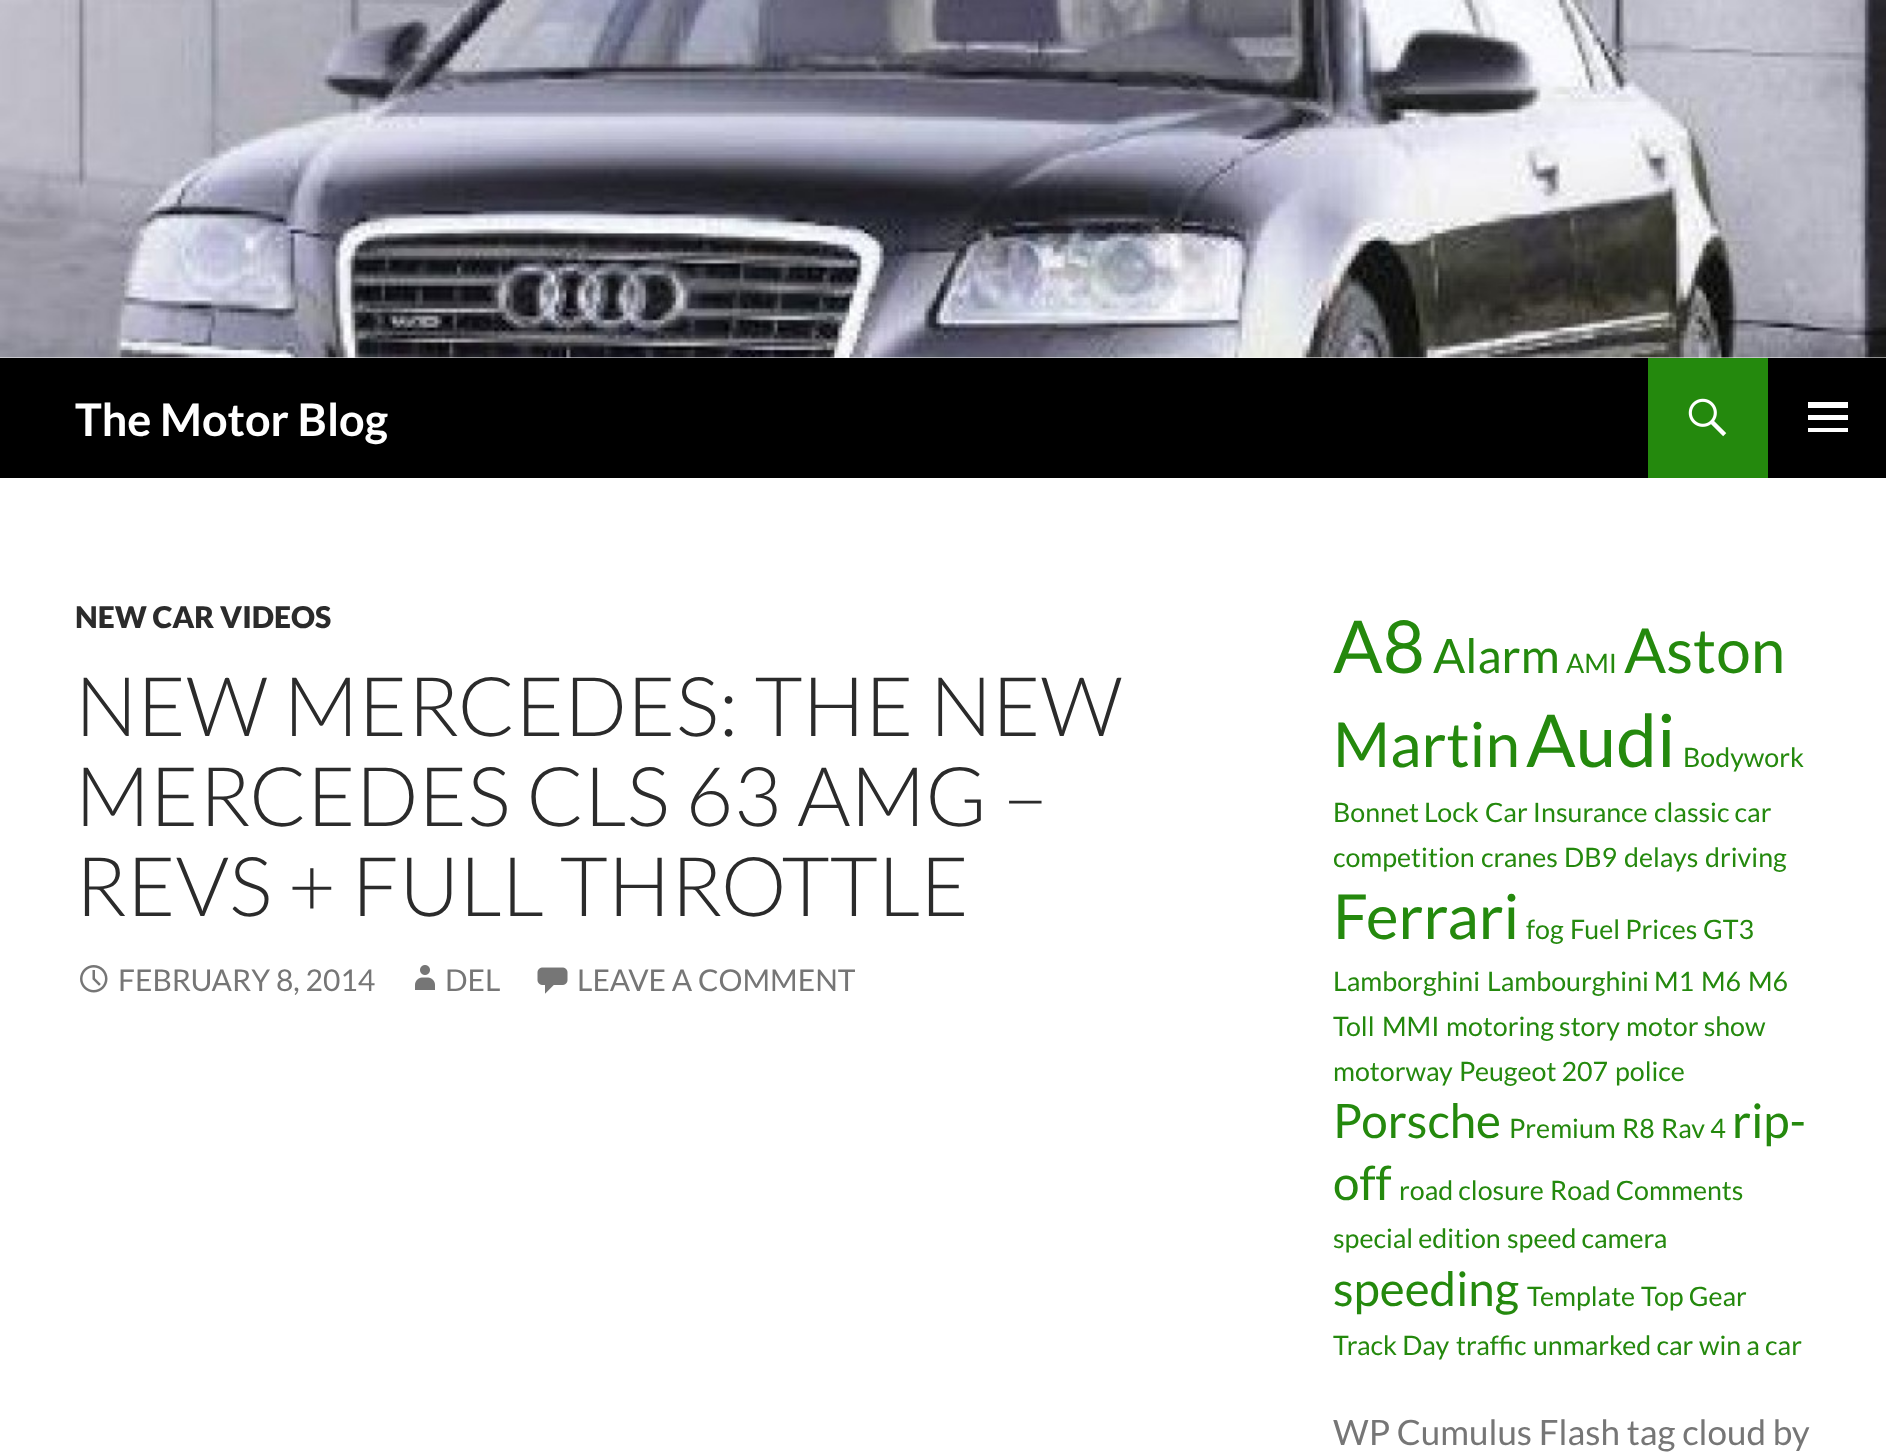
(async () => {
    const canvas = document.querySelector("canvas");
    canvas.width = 1886;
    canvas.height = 1454;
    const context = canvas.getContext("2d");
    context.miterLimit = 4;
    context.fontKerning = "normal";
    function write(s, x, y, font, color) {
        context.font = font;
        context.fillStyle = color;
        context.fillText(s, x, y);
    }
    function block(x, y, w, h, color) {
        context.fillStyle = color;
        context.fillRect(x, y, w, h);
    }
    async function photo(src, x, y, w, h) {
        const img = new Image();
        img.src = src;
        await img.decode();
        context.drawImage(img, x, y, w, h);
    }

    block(0, 0, 1886, 1454, "rgb(255, 255, 255)");
    await photo("media/1.png", 0, 0, 1886, 358);
    block(0, 358, 1886, 120, "rgb(0, 0, 0)");
    write("The Motor Blog", 75, 436, "bold 45px Lato", "rgb(255, 255, 255)");
    block(1648, 358, 120, 120, "rgb(36, 137, 13)");
    await photo("media/2.png", 1688, 398, 39, 39);
    context.fillStyle = "rgb(255, 255, 255)";
    context.beginPath();
    context.moveTo(1808, 432);
    context.lineTo(1808, 428);
    context.lineTo(1848, 428);
    context.lineTo(1848, 432);
    context.closePath();
    context.moveTo(1808, 402);
    context.lineTo(1848, 402);
    context.lineTo(1848, 408);
    context.lineTo(1808, 408);
    context.closePath();
    context.moveTo(1808, 420);
    context.lineTo(1808, 415);
    context.lineTo(1848, 415);
    context.lineTo(1848, 420);
    context.closePath();
    context.fill();
    write("NEW CAR VIDEOS", 75, 628, "900 30px Lato", "rgb(43, 43, 43)");
    write("NEW MERCEDES: THE NEW", 75, 736, "300 82.5px Lato", "rgb(43, 43, 43)");
    write("MERCEDES CLS 63 AMG –", 75, 826, "300 82.5px Lato", "rgb(43, 43, 43)");
    write("REVS + FULL THROTTLE", 75, 916, "300 82.5px Lato", "rgb(43, 43, 43)");
    await photo("media/3.png", 80, 965, 28, 28);
    write("FEBRUARY 8, 2014", 118, 991, "30px Lato", "rgb(118, 118, 118)");
    await photo("media/4.png", 415, 965, 20, 25);
    write("DEL", 445, 991, "30px Lato", "rgb(118, 118, 118)");
    await photo("media/5.png", 537, 967, 31, 27);
    write("LEAVE A COMMENT", 577, 991, "30px Lato", "rgb(118, 118, 118)");
    write("A8", 1333, 673, "73px Lato", "rgb(36, 137, 13)");
    write("Alarm", 1433, 673, "47.5px Lato", "rgb(36, 137, 13)");
    write("AMI", 1566, 673, "26.75px Lato", "rgb(36, 137, 13)");
    write("Aston", 1624, 673, "62px Lato", "rgb(36, 137, 13)");
    write("Martin", 1333, 767, "62px Lato", "rgb(36, 137, 13)");
    write("Audi", 1526, 767, "73px Lato", "rgb(36, 137, 13)");
    write("Bodywork", 1683, 767, "26.75px Lato", "rgb(36, 137, 13)");
    write("Bonnet Lock", 1333, 822, "26.75px Lato", "rgb(36, 137, 13)");
    write("Car Insurance", 1485, 822, "26.75px Lato", "rgb(36, 137, 13)");
    write("classic car", 1654, 822, "26.75px Lato", "rgb(36, 137, 13)");
    write("competition", 1333, 867, "26.75px Lato", "rgb(36, 137, 13)");
    write("cranes", 1481, 867, "26.75px Lato", "rgb(36, 137, 13)");
    write("DB9", 1564, 867, "26.75px Lato", "rgb(36, 137, 13)");
    write("delays", 1624, 867, "26.75px Lato", "rgb(36, 137, 13)");
    write("driving", 1705, 867, "26.75px Lato", "rgb(36, 137, 13)");
    write("Ferrari", 1333, 939, "62px Lato", "rgb(36, 137, 13)");
    write("fog", 1526, 939, "26.75px Lato", "rgb(36, 137, 13)");
    write("Fuel Prices", 1570, 939, "26.75px Lato", "rgb(36, 137, 13)");
    write("GT3", 1703, 939, "26.75px Lato", "rgb(36, 137, 13)");
    write("Lamborghini", 1333, 991, "26.75px Lato", "rgb(36, 137, 13)");
    write("Lambourghini", 1487, 991, "26.75px Lato", "rgb(36, 137, 13)");
    write("M1", 1654, 991, "26.75px Lato", "rgb(36, 137, 13)");
    write("M6", 1701, 991, "26.75px Lato", "rgb(36, 137, 13)");
    write("M6", 1748, 991, "26.75px Lato", "rgb(36, 137, 13)");
    write("Toll", 1333, 1036, "26.75px Lato", "rgb(36, 137, 13)");
    write("MMI", 1382, 1036, "26.75px Lato", "rgb(36, 137, 13)");
    write("motoring story", 1446, 1036, "26.75px Lato", "rgb(36, 137, 13)");
    write("motor show", 1626, 1036, "26.75px Lato", "rgb(36, 137, 13)");
    write("motorway", 1333, 1081, "26.75px Lato", "rgb(36, 137, 13)");
    write("Peugeot 207", 1459, 1081, "26.75px Lato", "rgb(36, 137, 13)");
    write("police", 1615, 1081, "26.75px Lato", "rgb(36, 137, 13)");
    write("Porsche", 1333, 1138, "47.5px Lato", "rgb(36, 137, 13)");
    write("Premium", 1509, 1138, "26.75px Lato", "rgb(36, 137, 13)");
    write("R8", 1622, 1138, "26.75px Lato", "rgb(36, 137, 13)");
    write("Rav 4", 1661, 1138, "26.75px Lato", "rgb(36, 137, 13)");
    write("rip-", 1732, 1138, "47.5px Lato", "rgb(36, 137, 13)");
    write("off", 1333, 1200, "47.5px Lato", "rgb(36, 137, 13)");
    write("road closure", 1399, 1200, "26.75px Lato", "rgb(36, 137, 13)");
    write("Road Comments", 1550, 1200, "26.75px Lato", "rgb(36, 137, 13)");
    write("special edition", 1333, 1248, "26.75px Lato", "rgb(36, 137, 13)");
    write("speed camera", 1507, 1248, "26.75px Lato", "rgb(36, 137, 13)");
    write("speeding", 1333, 1306, "47.5px Lato", "rgb(36, 137, 13)");
    write("Template", 1527, 1306, "26.75px Lato", "rgb(36, 137, 13)");
    write("Top Gear", 1641, 1306, "26.75px Lato", "rgb(36, 137, 13)");
    write("Track Day", 1333, 1355, "26.75px Lato", "rgb(36, 137, 13)");
    write("traffic", 1456, 1355, "26.75px Lato", "rgb(36, 137, 13)");
    write("unmarked car", 1533, 1355, "26.75px Lato", "rgb(36, 137, 13)");
    write("win a car", 1699, 1355, "26.75px Lato", "rgb(36, 137, 13)");
    write("WP Cumulus Flash tag cloud by", 1333, 1445, "35px Lato", "rgb(118, 118, 118)");
})();
